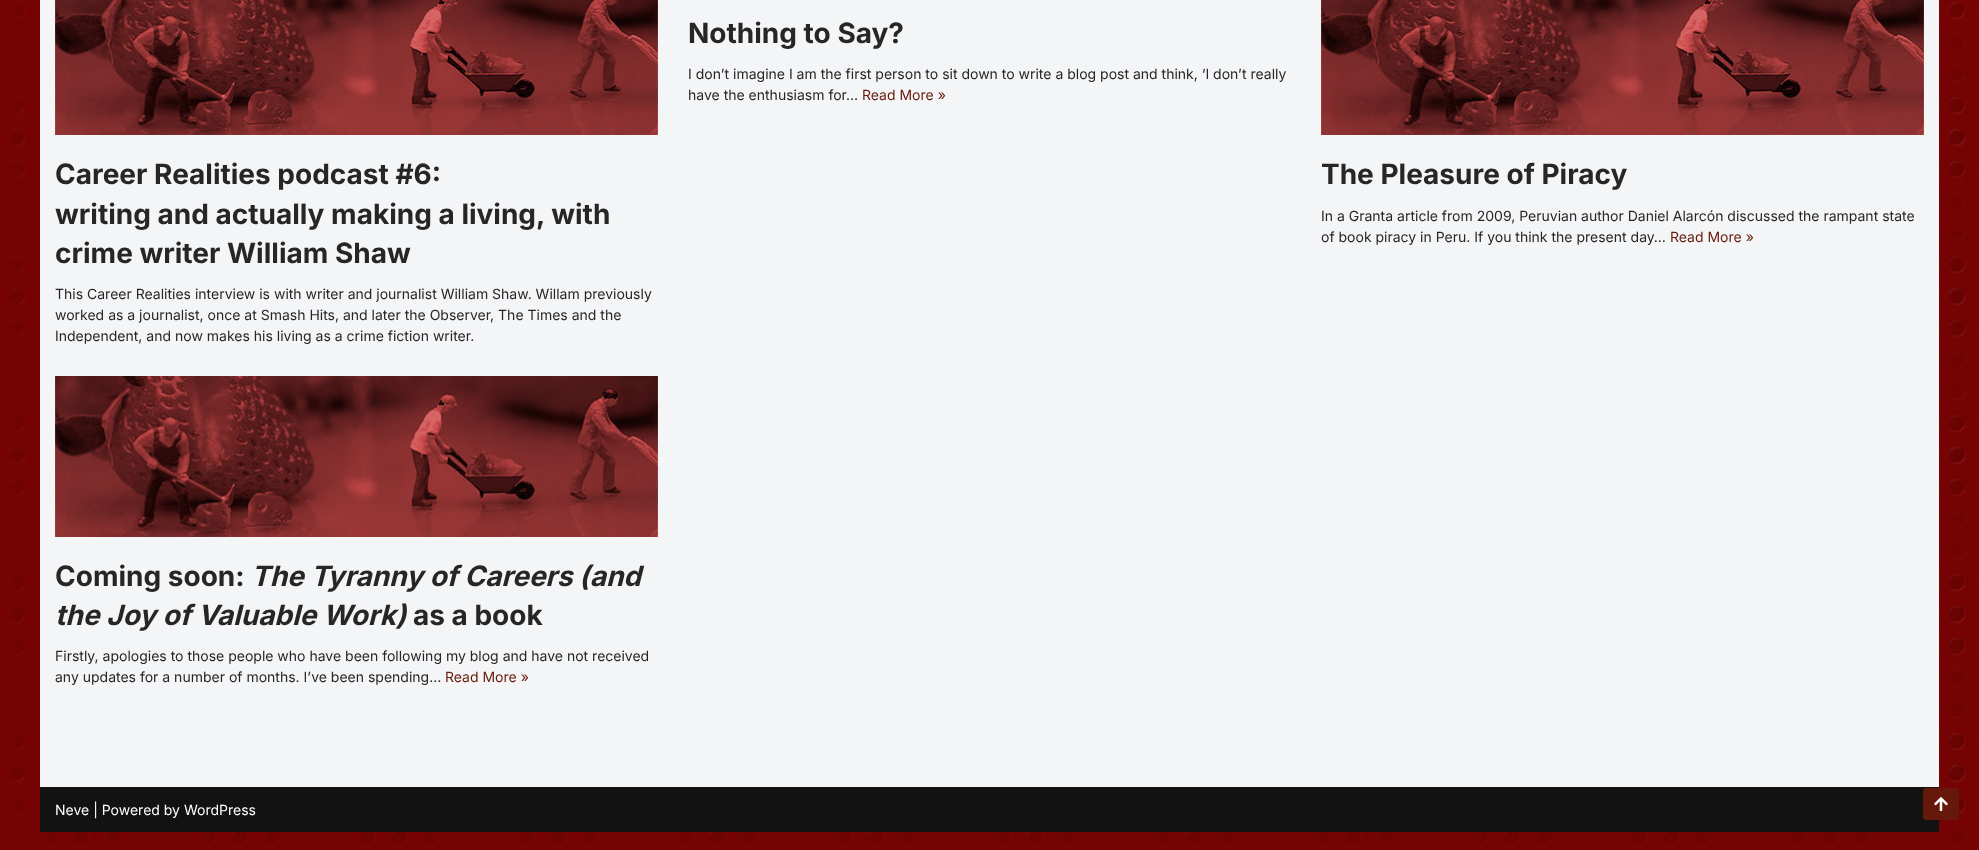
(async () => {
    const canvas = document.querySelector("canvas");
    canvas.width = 1979;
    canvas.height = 850;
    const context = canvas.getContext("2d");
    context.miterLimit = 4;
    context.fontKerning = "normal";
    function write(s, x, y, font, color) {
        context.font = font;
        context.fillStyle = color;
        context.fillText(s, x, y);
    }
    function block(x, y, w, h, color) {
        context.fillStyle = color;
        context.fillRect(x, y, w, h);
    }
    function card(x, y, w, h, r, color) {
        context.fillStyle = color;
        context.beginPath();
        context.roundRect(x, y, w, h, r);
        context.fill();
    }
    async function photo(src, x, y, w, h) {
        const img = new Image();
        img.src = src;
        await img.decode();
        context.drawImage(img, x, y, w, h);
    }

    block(0, 0, 1979, 850, "rgb(255, 255, 255)");
    await photo("media/1.png", 0, 0, 1979, 850);
    block(40, 0, 1899, 787, "rgb(244, 245, 247)");
    write("Nothing to Say?", 688, 43, "bold 28px Inter", "rgb(39, 38, 38)");
    write("I don’t imagine I am the first person to sit down to write a blog post and think, ‘I don’t really", 688, 79, "14px Inter", "rgb(39, 38, 38)");
    write("have the enthusiasm for…", 688, 100, "14px Inter", "rgb(39, 38, 38)");
    write("Read More »", 862, 100, "14px Inter", "rgb(102, 25, 10)");
    await photo("media/2.png", 55, 0, 603, 135);
    write("Career Realities podcast #6:", 55, 184, "bold 28px Inter", "rgb(39, 38, 38)");
    write("writing and actually making a living, with", 55, 224, "bold 28px Inter", "rgb(39, 38, 38)");
    write("crime writer William Shaw", 55, 263, "bold 28px Inter", "rgb(39, 38, 38)");
    write("This Career Realities interview is with writer and journalist William Shaw. Willam previously", 55, 299, "14px Inter", "rgb(39, 38, 38)");
    write("worked as a journalist, once at Smash Hits, and later the Observer, The Times and the", 55, 320, "14px Inter", "rgb(39, 38, 38)");
    write("Independent, and now makes his living as a crime fiction writer.", 55, 341, "14px Inter", "rgb(39, 38, 38)");
    await photo("media/3.png", 1321, 0, 603, 135);
    write("The Pleasure of Piracy", 1321, 184, "bold 28px Inter", "rgb(39, 38, 38)");
    write("In a Granta article from 2009, Peruvian author Daniel Alarcón discussed the rampant state", 1321, 221, "14px Inter", "rgb(39, 38, 38)");
    write("of book piracy in Peru. If you think the present day…", 1321, 242, "14px Inter", "rgb(39, 38, 38)");
    write("Read More »", 1670, 242, "14px Inter", "rgb(102, 25, 10)");
    await photo("media/4.png", 55, 376, 603, 161);
    write("Coming soon:", 55, 586, "bold 28px Inter", "rgb(39, 38, 38)");
    write("The Tyranny of Careers (and", 251, 586, "italic bold 28px Inter", "rgb(39, 38, 38)");
    write("the Joy of Valuable Work)", 55, 625, "italic bold 28px Inter", "rgb(39, 38, 38)");
    write("as a book", 413, 625, "bold 28px Inter", "rgb(39, 38, 38)");
    write("Firstly, apologies to those people who have been following my blog and have not received", 55, 661, "14px Inter", "rgb(39, 38, 38)");
    write("any updates for a number of months. I’ve been spending…", 55, 682, "14px Inter", "rgb(39, 38, 38)");
    write("Read More »", 445, 682, "14px Inter", "rgb(102, 25, 10)");
    block(40, 787, 1899, 45, "rgb(18, 18, 18)");
    write("Neve | Powered by WordPress", 55, 815, "14px Inter", "rgb(255, 255, 255)");
    card(1923, 788, 36, 32, 3, "rgb(102, 25, 10)");
    await photo("media/5.png", 1934, 797, 14, 14);
})();
